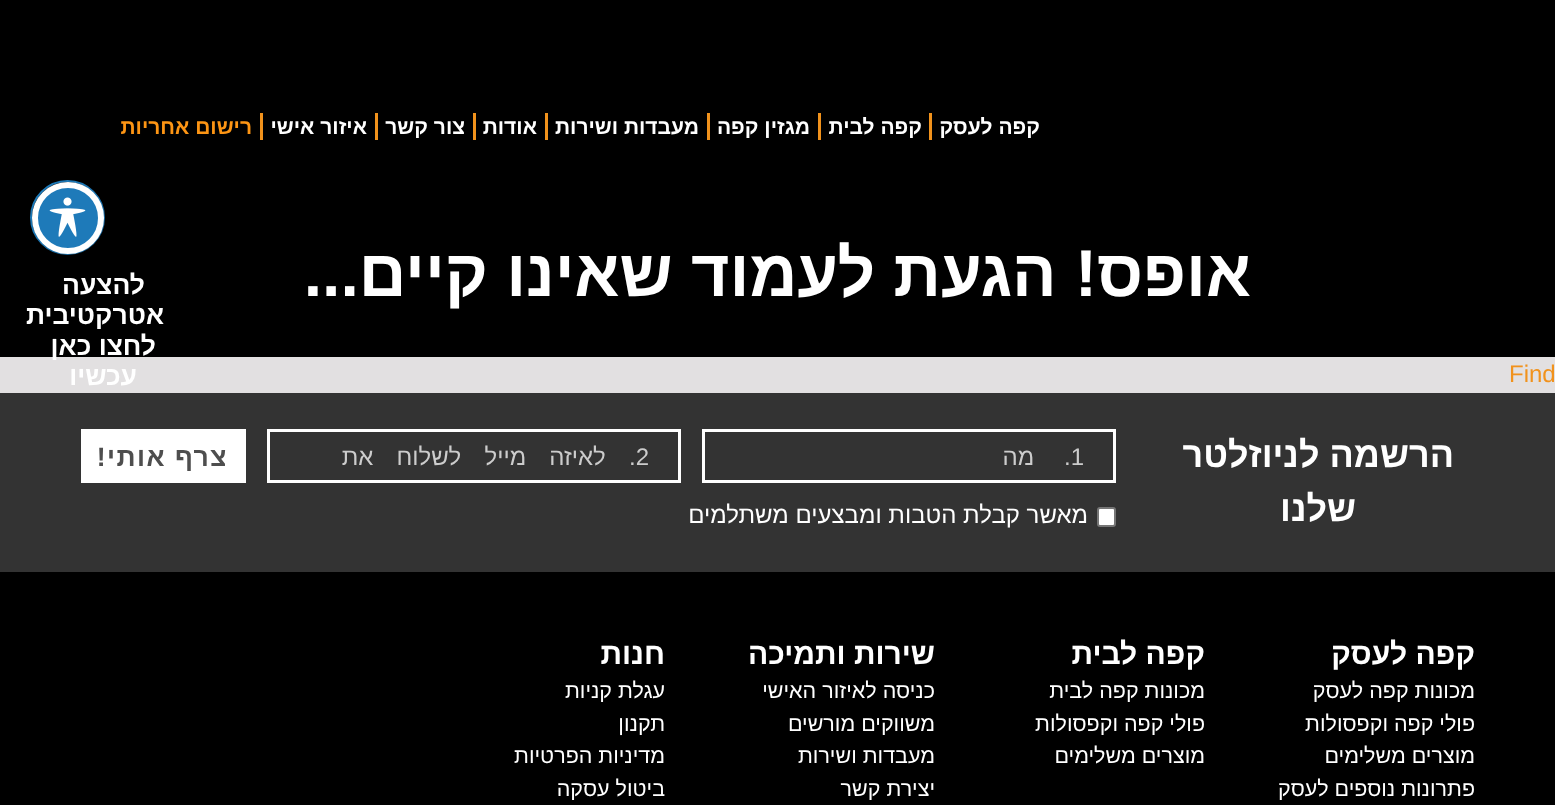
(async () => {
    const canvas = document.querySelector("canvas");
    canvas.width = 1555;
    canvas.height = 805;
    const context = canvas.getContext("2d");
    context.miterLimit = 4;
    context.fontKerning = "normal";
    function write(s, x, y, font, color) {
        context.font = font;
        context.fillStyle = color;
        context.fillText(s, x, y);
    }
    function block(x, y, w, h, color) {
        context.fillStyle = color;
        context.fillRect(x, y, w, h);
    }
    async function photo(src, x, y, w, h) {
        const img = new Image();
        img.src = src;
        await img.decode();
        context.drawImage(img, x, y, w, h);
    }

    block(0, 0, 1555, 805, "rgb(226, 224, 225)");
    block(0, 0, 1555, 357, "rgb(0, 0, 0)");
    block(929, 113, 3, 27, "rgb(241, 146, 28)");
    context.direction = "rtl";
    write("קפה לעסק", 1040, 134, "bold 21px Liberation Sans", "rgb(255, 255, 255)");
    block(818, 113, 3, 27, "rgb(241, 146, 28)");
    write("קפה לבית", 922, 134, "bold 21px Liberation Sans", "rgb(255, 255, 255)");
    block(707, 113, 3, 27, "rgb(241, 146, 28)");
    write("מגזין קפה", 810, 134, "bold 21px Liberation Sans", "rgb(255, 255, 255)");
    block(545, 113, 3, 27, "rgb(241, 146, 28)");
    write("מעבדות ושירות", 699, 134, "bold 21px Liberation Sans", "rgb(255, 255, 255)");
    block(473, 113, 3, 27, "rgb(241, 146, 28)");
    write("אודות", 537, 134, "bold 21px Liberation Sans", "rgb(255, 255, 255)");
    block(375, 113, 3, 27, "rgb(241, 146, 28)");
    write("צור קשר", 465, 134, "bold 21px Liberation Sans", "rgb(255, 255, 255)");
    block(260, 113, 3, 27, "rgb(241, 146, 28)");
    write("איזור אישי", 367, 134, "bold 21px Liberation Sans", "rgb(255, 255, 255)");
    write("רישום אחריות", 252, 134, "bold 21px Liberation Sans", "rgb(253, 149, 20)");
    write("אופס! הגעת לעמוד שאינו קיים...", 1251, 296, "bold 66px Liberation Sans", "rgb(255, 255, 255)");
    context.beginPath();
    context.arc(67.5, 217.5, 36.5, 0, Math.PI * 2);
    context.strokeStyle = "rgb(30, 122, 185)";
    context.lineWidth = 2;
    context.stroke();
    context.fillStyle = "rgba(0, 0, 0, 0.2)";
    context.filter = "blur(12px)";
    context.beginPath();
    context.roundRect(41, 194, 72, 72, 36);
    context.fill();
    context.filter = "none";
    context.fillStyle = "rgb(30, 122, 185)";
    context.beginPath();
    context.arc(68, 218, 33, 0, Math.PI * 2);
    context.fill();
    context.strokeStyle = "rgb(255, 255, 255)";
    context.lineWidth = 6;
    context.stroke();
    await photo("media/1.png", 49, 197, 37, 40);
    context.direction = "ltr";
    write("Find", 1509, 382, "24px Liberation Sans", "rgb(241, 146, 28)");
    context.direction = "rtl";
    write("להצעה", 145, 294, "bold 26.5px Liberation Sans", "rgb(255, 255, 255)");
    write("אטרקטיבית", 164, 324, "bold 26.5px Liberation Sans", "rgb(255, 255, 255)");
    write("לחצו כאן", 156, 355, "bold 26.5px Liberation Sans", "rgb(255, 255, 255)");
    write("עכשיו", 137, 385, "bold 26.5px Liberation Sans", "rgb(255, 255, 255)");
    block(0, 393, 1555, 179, "rgb(51, 51, 51)");
    write("הרשמה לניוזלטר", 1454, 467, "bold 36px Liberation Sans", "rgb(255, 255, 255)");
    write("שלנו", 1356, 521, "bold 36px Liberation Sans", "rgb(255, 255, 255)");
    context.lineWidth = 3;
    context.strokeRect(703.5, 430.5, 411, 51);
    context.wordSpacing = "23px";
    write("1. מה", 1084, 465, "24px Liberation Sans", "rgb(204, 204, 204)");
    context.strokeRect(268.5, 430.5, 411, 51);
    context.wordSpacing = "16.5px";
    write("2. לאיזה מייל לשלוח את", 649, 465, "24px Liberation Sans", "rgb(204, 204, 204)");
    block(81, 429, 165, 54, "rgb(255, 255, 255)");
    context.letterSpacing = "1.5px";
    context.wordSpacing = "0px";
    write("צרף אותי!", 228, 466, "bold 26.5px Liberation Sans", "rgb(78, 78, 78)");
    context.fillStyle = "rgb(255, 255, 255)";
    context.beginPath();
    context.roundRect(1098, 508, 17, 18, 2);
    context.fill();
    context.strokeStyle = "rgb(118, 118, 118)";
    context.lineWidth = 2;
    context.stroke();
    context.letterSpacing = "0px";
    write("מאשר קבלת הטבות ומבצעים משתלמים", 1088, 523, "24px Liberation Sans", "rgb(255, 255, 255)");
    block(0, 572, 1555, 233, "rgb(0, 0, 0)");
    write("קפה לעסק", 1475, 664, "bold 30px Liberation Sans", "rgb(255, 255, 255)");
    write("מכונות קפה לעסק", 1475, 698, "21.5px Liberation Sans", "rgb(255, 255, 255)");
    write("פולי קפה וקפסולות", 1475, 731, "21.5px Liberation Sans", "rgb(255, 255, 255)");
    write("מוצרים משלימים", 1475, 763, "21.5px Liberation Sans", "rgb(255, 255, 255)");
    write("פתרונות נוספים לעסק", 1475, 796, "21.5px Liberation Sans", "rgb(255, 255, 255)");
    write("קפה לבית", 1205, 664, "bold 30px Liberation Sans", "rgb(255, 255, 255)");
    write("מכונות קפה לבית", 1205, 698, "21.5px Liberation Sans", "rgb(255, 255, 255)");
    write("פולי קפה וקפסולות", 1205, 731, "21.5px Liberation Sans", "rgb(255, 255, 255)");
    write("מוצרים משלימים", 1205, 763, "21.5px Liberation Sans", "rgb(255, 255, 255)");
    write("שירות ותמיכה", 935, 664, "bold 30px Liberation Sans", "rgb(255, 255, 255)");
    write("כניסה לאיזור האישי", 935, 698, "21.5px Liberation Sans", "rgb(255, 255, 255)");
    write("משווקים מורשים", 935, 731, "21.5px Liberation Sans", "rgb(255, 255, 255)");
    write("מעבדות ושירות", 935, 763, "21.5px Liberation Sans", "rgb(255, 255, 255)");
    write("יצירת קשר", 935, 796, "21.5px Liberation Sans", "rgb(255, 255, 255)");
    write("חנות", 665, 664, "bold 30px Liberation Sans", "rgb(255, 255, 255)");
    write("עגלת קניות", 665, 698, "21.5px Liberation Sans", "rgb(255, 255, 255)");
    write("תקנון", 665, 731, "21.5px Liberation Sans", "rgb(255, 255, 255)");
    write("מדיניות הפרטיות", 665, 763, "21.5px Liberation Sans", "rgb(255, 255, 255)");
    write("ביטול עסקה", 665, 796, "21.5px Liberation Sans", "rgb(255, 255, 255)");
})();
